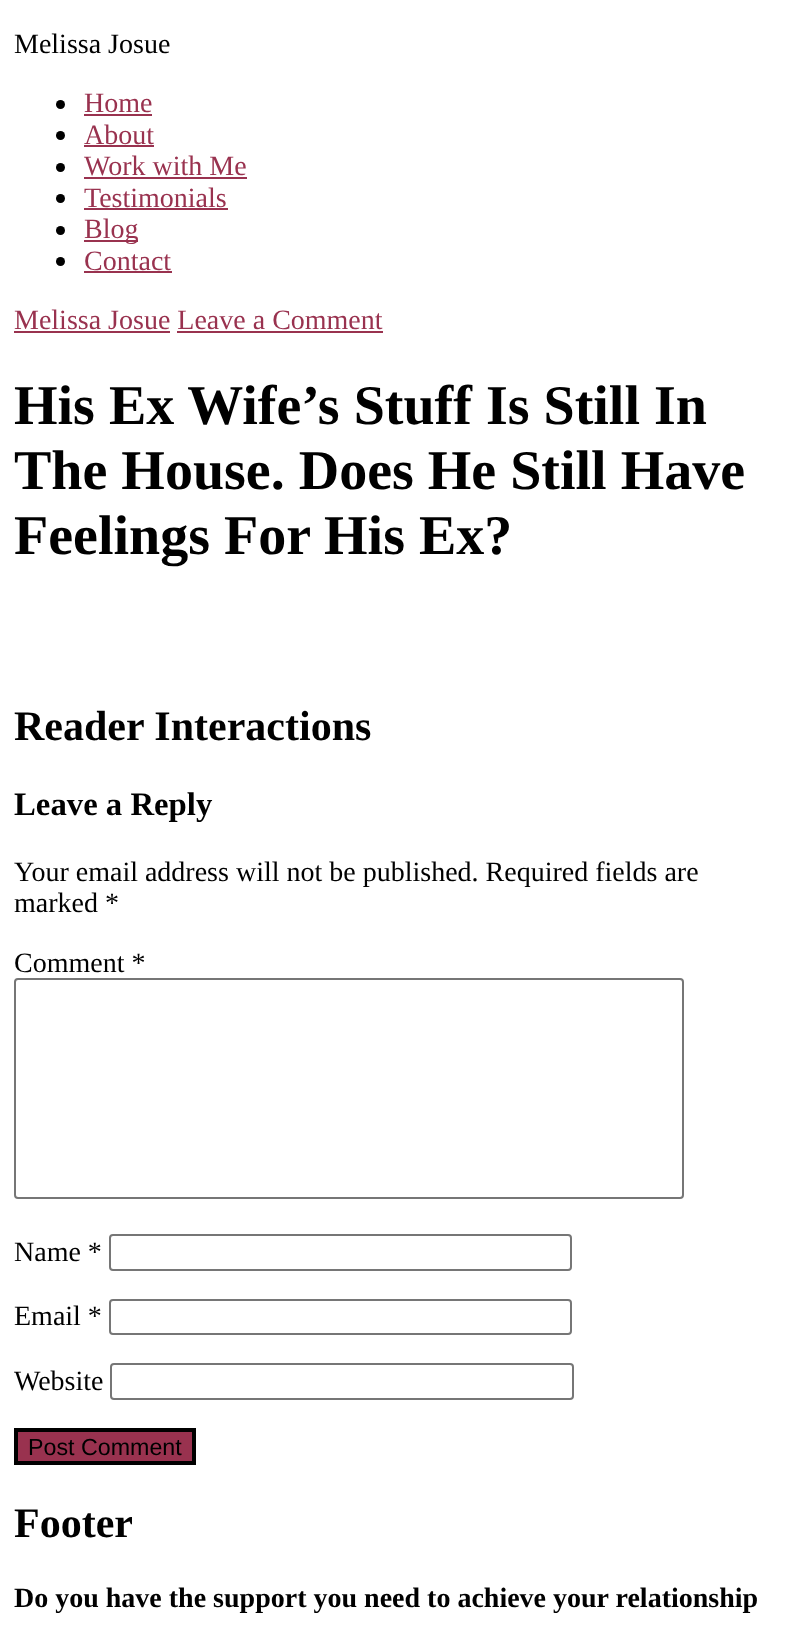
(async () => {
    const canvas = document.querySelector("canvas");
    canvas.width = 803;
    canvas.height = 1633;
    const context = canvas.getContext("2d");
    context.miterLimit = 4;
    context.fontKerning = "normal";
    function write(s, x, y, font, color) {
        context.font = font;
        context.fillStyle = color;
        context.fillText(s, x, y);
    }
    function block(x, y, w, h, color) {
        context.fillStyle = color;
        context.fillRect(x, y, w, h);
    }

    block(0, 0, 803, 1633, "rgb(255, 255, 255)");
    write("Melissa Josue", 14, 53, "28px Liberation Serif", "rgb(0, 0, 0)");
    context.beginPath();
    context.arc(60.5, 104.5, 4.5, 0, Math.PI * 2);
    context.fill();
    write("Home", 84, 112, "28px Liberation Serif", "rgb(153, 50, 79)");
    block(84, 114, 68, 2, "rgb(153, 50, 79)");
    context.fillStyle = "rgb(0, 0, 0)";
    context.beginPath();
    context.arc(60.5, 135.5, 4.5, 0, Math.PI * 2);
    context.fill();
    write("About", 84, 144, "28px Liberation Serif", "rgb(153, 50, 79)");
    block(84, 145, 70, 2, "rgb(153, 50, 79)");
    context.fillStyle = "rgb(0, 0, 0)";
    context.beginPath();
    context.arc(60.5, 167.5, 4.5, 0, Math.PI * 2);
    context.fill();
    write("Work with Me", 84, 175, "28px Liberation Serif", "rgb(153, 50, 79)");
    block(84, 177, 163, 2, "rgb(153, 50, 79)");
    context.fillStyle = "rgb(0, 0, 0)";
    context.beginPath();
    context.arc(60.5, 198.5, 4.5, 0, Math.PI * 2);
    context.fill();
    write("Testimonials", 84, 207, "28px Liberation Serif", "rgb(153, 50, 79)");
    block(84, 208, 144, 2, "rgb(153, 50, 79)");
    context.fillStyle = "rgb(0, 0, 0)";
    context.beginPath();
    context.arc(60.5, 230.5, 4.5, 0, Math.PI * 2);
    context.fill();
    block(84, 240, 54, 2, "rgb(153, 50, 79)");
    write("Blog", 84, 238, "28px Liberation Serif", "rgb(153, 50, 79)");
    context.fillStyle = "rgb(0, 0, 0)";
    context.beginPath();
    context.arc(60.5, 261.5, 4.5, 0, Math.PI * 2);
    context.fill();
    write("Contact", 84, 270, "28px Liberation Serif", "rgb(153, 50, 79)");
    block(84, 271, 88, 2, "rgb(153, 50, 79)");
    write("Melissa Josue Leave a Comment", 14, 329, "28px Liberation Serif", "rgb(153, 50, 79)");
    block(14, 331, 156, 2, "rgb(153, 50, 79)");
    block(177, 331, 206, 2, "rgb(153, 50, 79)");
    write("His Ex Wife’s Stuff Is Still In", 14, 424, "bold 56px Liberation Serif", "rgb(0, 0, 0)");
    write("The House. Does He Still Have", 14, 489, "bold 56px Liberation Serif", "rgb(0, 0, 0)");
    write("Feelings For His Ex?", 14, 554, "bold 56px Liberation Serif", "rgb(0, 0, 0)");
    write("Reader Interactions", 14, 740, "bold 42px Liberation Serif", "rgb(0, 0, 0)");
    write("Leave a Reply", 14, 815, "bold 32.75px Liberation Serif", "rgb(0, 0, 0)");
    write("Your email address will not be published. Required fields are", 14, 881, "28px Liberation Serif", "rgb(0, 0, 0)");
    write("marked *", 14, 912, "28px Liberation Serif", "rgb(0, 0, 0)");
    write("Comment *", 14, 972, "28px Liberation Serif", "rgb(0, 0, 0)");
    context.beginPath();
    context.roundRect(15, 979, 668, 219, 3);
    context.strokeStyle = "rgb(118, 118, 118)";
    context.lineWidth = 2;
    context.stroke();
    write("Name *", 14, 1261, "28px Liberation Serif", "rgb(0, 0, 0)");
    context.beginPath();
    context.roundRect(110, 1235, 461, 35, 3);
    context.stroke();
    write("Email *", 14, 1325, "28px Liberation Serif", "rgb(0, 0, 0)");
    context.beginPath();
    context.roundRect(110, 1300, 461, 34, 3);
    context.stroke();
    write("Website", 14, 1390, "28px Liberation Serif", "rgb(0, 0, 0)");
    context.beginPath();
    context.roundRect(111, 1364, 462, 35, 3);
    context.stroke();
    context.fillStyle = "rgb(153, 50, 79)";
    context.beginPath();
    context.rect(16, 1430, 178, 33);
    context.fill();
    context.strokeStyle = "rgb(0, 0, 0)";
    context.lineWidth = 4;
    context.stroke();
    write("Post Comment", 28, 1455, "23.25px Liberation Sans", "rgb(0, 0, 0)");
    write("Footer", 14, 1537, "bold 42px Liberation Serif", "rgb(0, 0, 0)");
    write("Do you have the support you need to achieve your relationship", 14, 1607, "bold 28px Liberation Serif", "rgb(0, 0, 0)");
})();
